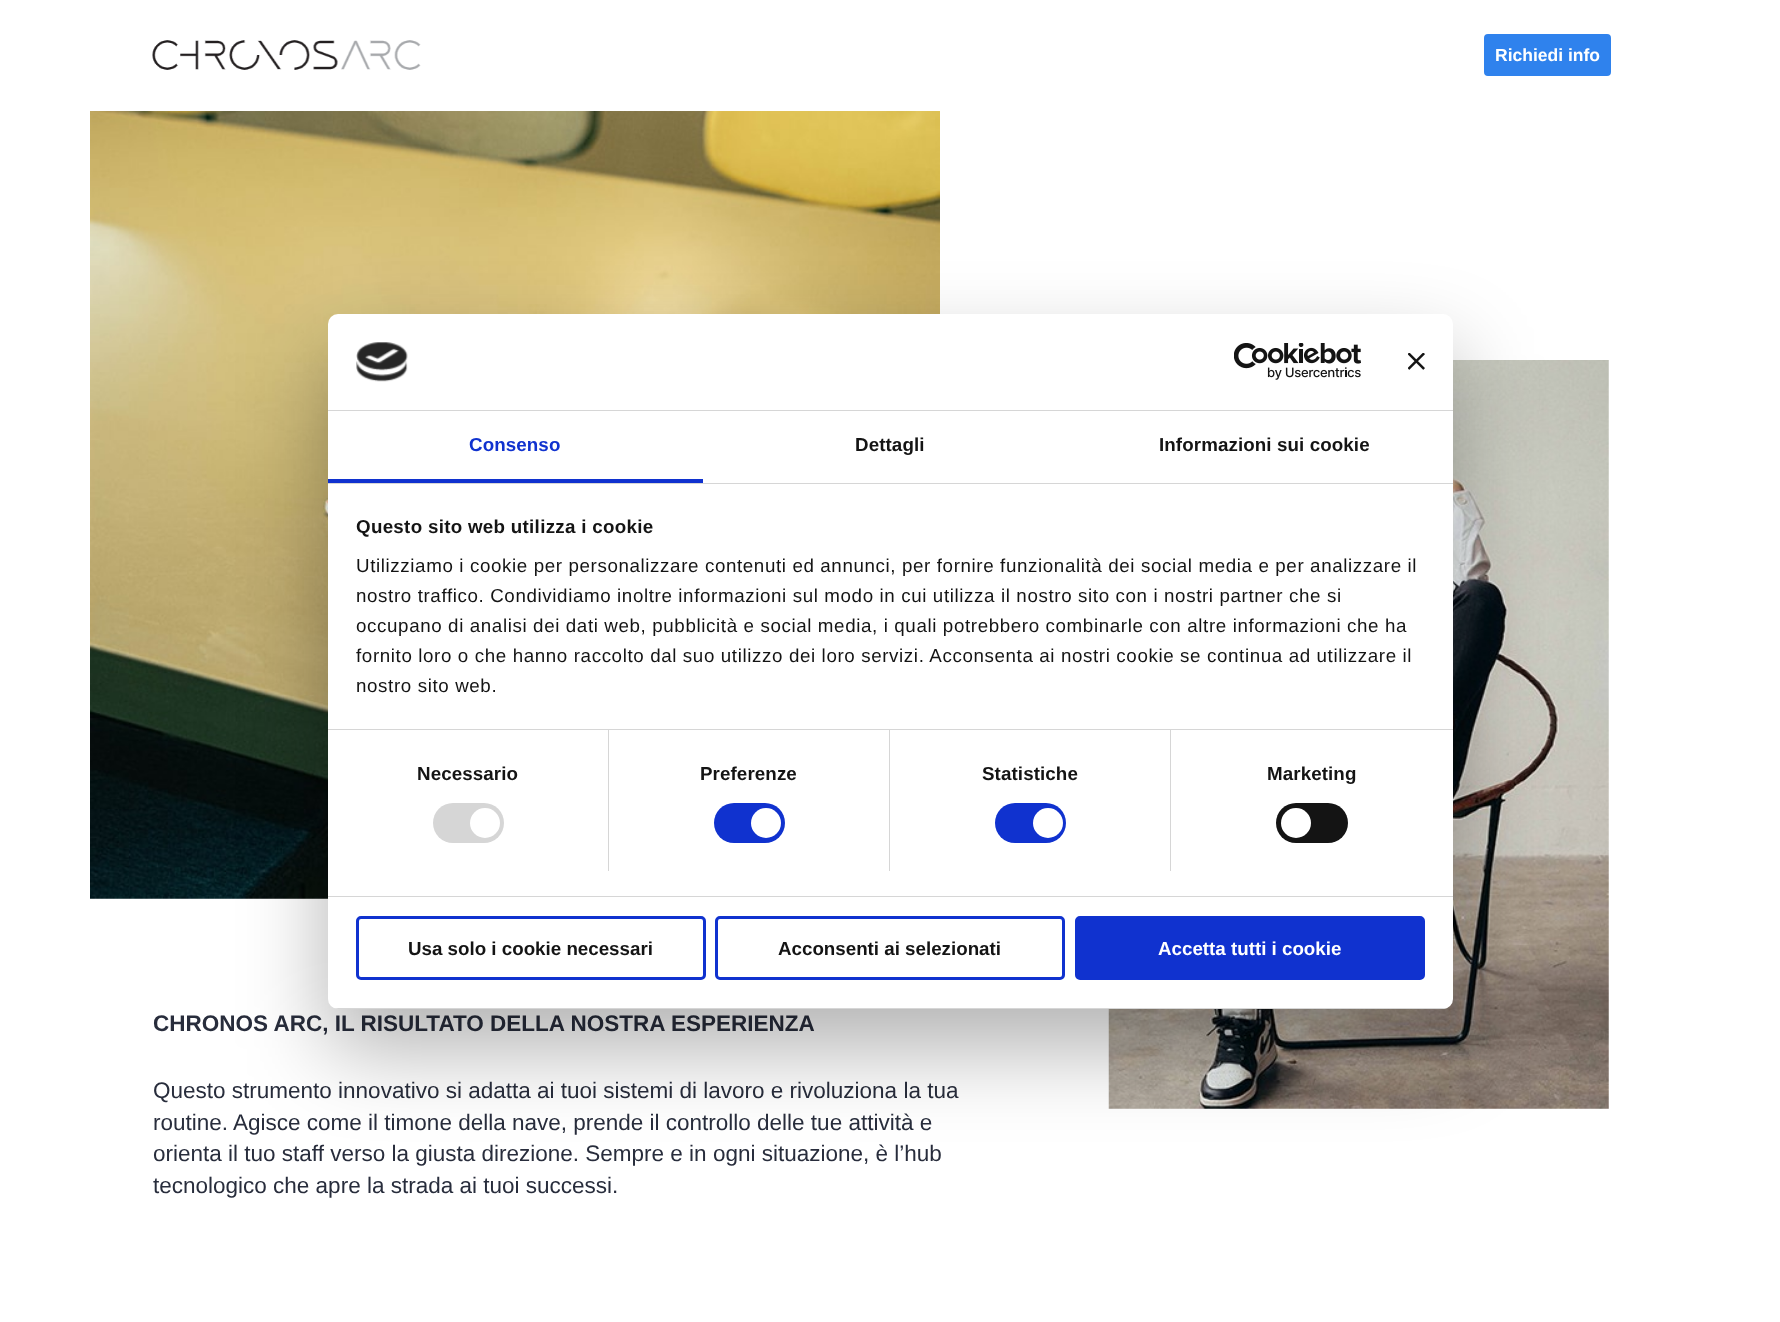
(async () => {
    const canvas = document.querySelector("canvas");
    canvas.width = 1780;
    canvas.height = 1322;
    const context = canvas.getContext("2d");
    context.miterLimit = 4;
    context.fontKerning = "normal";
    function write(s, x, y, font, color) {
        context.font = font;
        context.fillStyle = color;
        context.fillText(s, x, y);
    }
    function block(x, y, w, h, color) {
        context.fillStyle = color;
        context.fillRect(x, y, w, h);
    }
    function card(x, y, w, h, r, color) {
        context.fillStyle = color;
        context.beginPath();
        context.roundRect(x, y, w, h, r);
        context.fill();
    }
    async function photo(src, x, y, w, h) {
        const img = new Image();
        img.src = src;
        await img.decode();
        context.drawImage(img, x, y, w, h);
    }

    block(0, 0, 1780, 1322, "rgb(255, 255, 255)");
    await photo("media/1.png", 152, 40, 269, 30);
    context.fillStyle = "rgb(47, 130, 237)";
    context.beginPath();
    context.roundRect(1485.5, 35.5, 124, 39, 2.5);
    context.fill();
    context.strokeStyle = "rgb(47, 130, 237)";
    context.lineWidth = 3;
    context.stroke();
    write("Richiedi info", 1495, 61, "bold 17.5px Liberation Sans", "rgb(255, 255, 255)");
    await photo("media/2.png", 90, 111, 850, 788);
    write("CHRONOS ARC, IL RISULTATO DELLA NOSTRA ESPERIENZA", 153, 1031, "bold 22.5px Liberation Sans", "rgb(40, 45, 60)");
    write("Questo strumento innovativo si adatta ai tuoi sistemi di lavoro e rivoluziona la tua", 153, 1098, "22.5px Liberation Sans", "rgb(40, 45, 60)");
    write("routine. Agisce come il timone della nave, prende il controllo delle tue attività e", 153, 1130, "22.5px Liberation Sans", "rgb(40, 45, 60)");
    write("orienta il tuo staff verso la giusta direzione. Sempre e in ogni situazione, è l’hub", 153, 1161, "22.5px Liberation Sans", "rgb(40, 45, 60)");
    write("tecnologico che apre la strada ai tuoi successi.", 153, 1193, "22.5px Liberation Sans", "rgb(40, 45, 60)");
    await photo("media/3.png", 1108, 360, 501, 749);
    context.fillStyle = "rgba(0, 0, 0, 0.3)";
    context.filter = "blur(42.5px)";
    context.beginPath();
    context.roundRect(328, 354, 1125, 695, 10);
    context.fill();
    context.filter = "none";
    card(328, 314, 1125, 695, 10, "rgb(255, 255, 255)");
    block(328, 410, 1125, 1, "rgb(214, 214, 214)");
    await photo("media/4.png", 356, 342, 52, 40);
    await photo("media/5.png", 1234, 343, 127, 37);
    await photo("media/6.png", 1408, 353, 17, 17);
    block(328, 483, 1125, 1, "rgb(214, 214, 214)");
    block(328, 479, 375, 4, "rgb(16, 50, 207)");
    context.letterSpacing = "0.1px";
    write("Consenso", 469, 451, "bold 18.75px Liberation Sans", "rgb(16, 50, 207)");
    write("Dettagli", 855, 451, "bold 18.75px Liberation Sans", "rgb(20, 20, 20)");
    write("Informazioni sui cookie", 1159, 451, "bold 18.75px Liberation Sans", "rgb(20, 20, 20)");
    block(328, 729, 1125, 1, "rgb(214, 214, 214)");
    context.letterSpacing = "0.3px";
    write("Questo sito web utilizza i cookie", 356, 533, "bold 18.75px Liberation Sans", "rgb(20, 20, 20)");
    context.letterSpacing = "0.62px";
    write("Utilizziamo i cookie per personalizzare contenuti ed annunci, per fornire funzionalità dei social media e per analizzare il", 356, 572, "18.75px Liberation Sans", "rgb(20, 20, 20)");
    write("nostro traffico. Condividiamo inoltre informazioni sul modo in cui utilizza il nostro sito con i nostri partner che si", 356, 602, "18.75px Liberation Sans", "rgb(20, 20, 20)");
    write("occupano di analisi dei dati web, pubblicità e social media, i quali potrebbero combinarle con altre informazioni che ha", 356, 632, "18.75px Liberation Sans", "rgb(20, 20, 20)");
    write("fornito loro o che hanno raccolto dal suo utilizzo dei loro servizi. Acconsenta ai nostri cookie se continua ad utilizzare il", 356, 662, "18.75px Liberation Sans", "rgb(20, 20, 20)");
    write("nostro sito web.", 356, 692, "18.75px Liberation Sans", "rgb(20, 20, 20)");
    block(328, 896, 1125, 1, "rgb(214, 214, 214)");
    block(608, 730, 1, 141, "rgb(214, 214, 214)");
    context.letterSpacing = "0.1px";
    write("Necessario", 417, 780, "bold 18.75px Liberation Sans", "rgb(20, 20, 20)");
    card(433, 803, 71, 40, 20, "rgb(214, 214, 214)");
    context.fillStyle = "rgb(255, 255, 255)";
    context.beginPath();
    context.arc(485, 823, 15, 0, Math.PI * 2);
    context.fill();
    block(889, 730, 1, 141, "rgb(214, 214, 214)");
    write("Preferenze", 700, 780, "bold 18.75px Liberation Sans", "rgb(20, 20, 20)");
    card(714, 803, 71, 40, 20, "rgb(16, 50, 207)");
    context.fillStyle = "rgb(255, 255, 255)";
    context.beginPath();
    context.arc(766, 823, 15, 0, Math.PI * 2);
    context.fill();
    block(1170, 730, 1, 141, "rgb(214, 214, 214)");
    write("Statistiche", 982, 780, "bold 18.75px Liberation Sans", "rgb(20, 20, 20)");
    card(995, 803, 71, 40, 20, "rgb(16, 50, 207)");
    context.fillStyle = "rgb(255, 255, 255)";
    context.beginPath();
    context.arc(1048, 823, 15, 0, Math.PI * 2);
    context.fill();
    write("Marketing", 1267, 780, "bold 18.75px Liberation Sans", "rgb(20, 20, 20)");
    card(1276, 803, 72, 40, 20, "rgb(20, 20, 20)");
    context.fillStyle = "rgb(255, 255, 255)";
    context.beginPath();
    context.arc(1296, 823, 15, 0, Math.PI * 2);
    context.fill();
    context.save();
    context.beginPath();
    context.roundRect(328, 314, 1125, 695, 10);
    context.clip();
    block(328, 1008, 1125, 1, "rgb(214, 214, 214)");
    context.restore();
    context.beginPath();
    context.roundRect(357.5, 917.5, 347, 61, 3.5);
    context.strokeStyle = "rgb(16, 50, 207)";
    context.stroke();
    context.letterSpacing = "0px";
    write("Usa solo i cookie necessari", 408, 955, "bold 18.75px Liberation Sans", "rgb(20, 20, 20)");
    context.beginPath();
    context.roundRect(716.5, 917.5, 347, 61, 3.5);
    context.stroke();
    write("Acconsenti ai selezionati", 778, 955, "bold 18.75px Liberation Sans", "rgb(20, 20, 20)");
    context.fillStyle = "rgb(16, 50, 207)";
    context.beginPath();
    context.roundRect(1076.5, 917.5, 347, 61, 3.5);
    context.fill();
    context.stroke();
    write("Accetta tutti i cookie", 1158, 955, "bold 18.75px Liberation Sans", "rgb(255, 255, 255)");
})();
